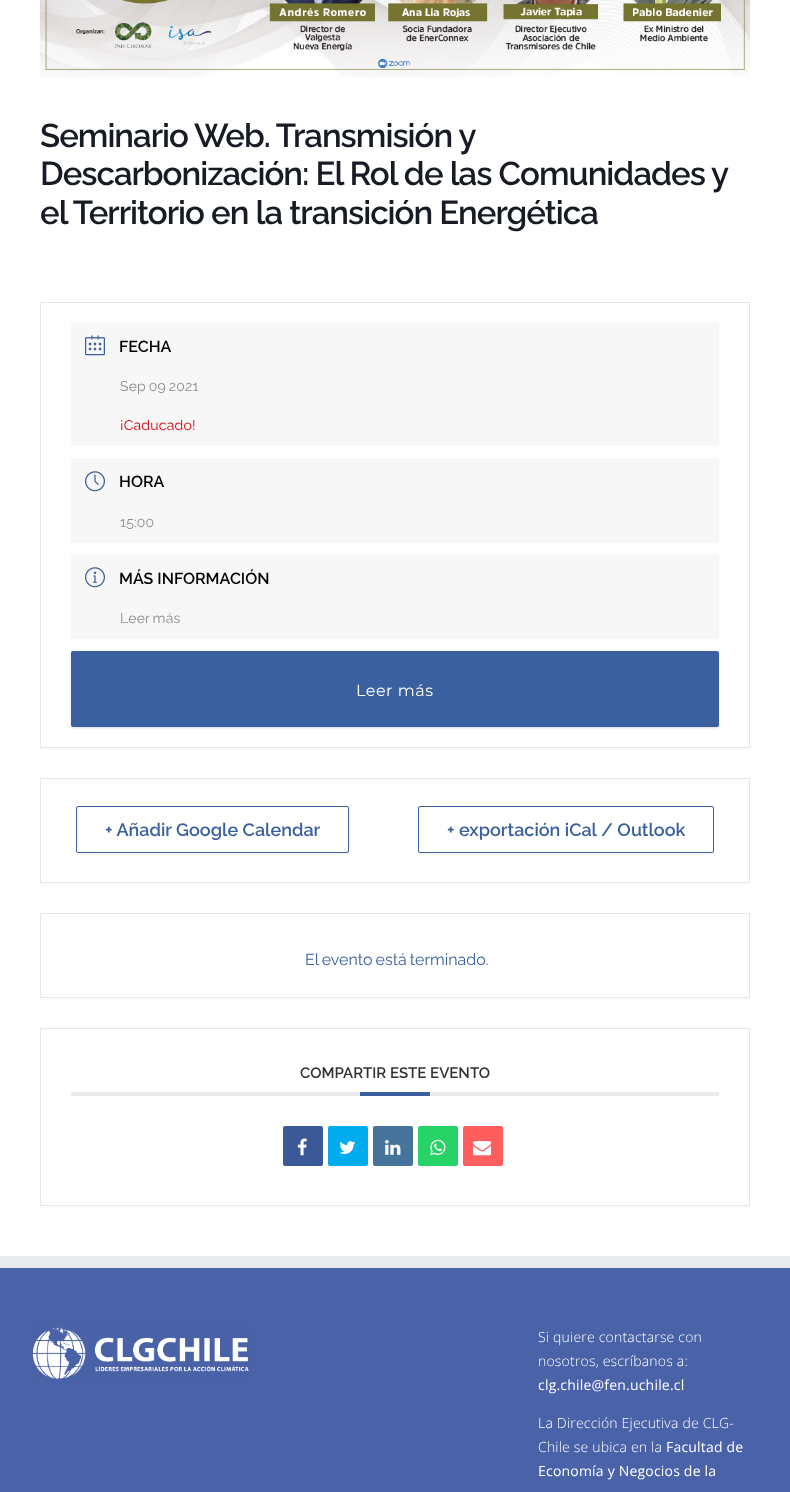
(async () => {
    const canvas = document.querySelector("canvas");
    canvas.width = 790;
    canvas.height = 1492;
    const context = canvas.getContext("2d");
    context.miterLimit = 4;
    context.fontKerning = "normal";
    function write(s, x, y, font, color) {
        context.font = font;
        context.fillStyle = color;
        context.fillText(s, x, y);
    }
    function block(x, y, w, h, color) {
        context.fillStyle = color;
        context.fillRect(x, y, w, h);
    }
    function card(x, y, w, h, r, color) {
        context.fillStyle = color;
        context.beginPath();
        context.roundRect(x, y, w, h, r);
        context.fill();
    }
    async function photo(src, x, y, w, h) {
        const img = new Image();
        img.src = src;
        await img.decode();
        context.drawImage(img, x, y, w, h);
    }

    block(0, 0, 790, 1492, "rgb(255, 255, 255)");
    await photo("media/1.png", 40, 0, 710, 77);
    context.letterSpacing = "-1px";
    write("Seminario Web. Transmisión y", 40, 147, "100 33px Raleway", "rgb(23, 28, 36)");
    write("Descarbonización: El Rol de las Comunidades y", 40, 185, "100 33px Raleway", "rgb(23, 28, 36)");
    write("el Territorio en la transición Energética", 40, 224, "100 33px Raleway", "rgb(23, 28, 36)");
    block(40, 748, 710, 2, "rgb(251, 251, 251)");
    context.strokeStyle = "rgb(230, 230, 230)";
    context.strokeRect(40.5, 302.5, 709, 445);
    block(71, 323, 648, 123, "rgb(247, 247, 247)");
    await photo("media/2.png", 85, 335, 20, 21);
    context.letterSpacing = "0px";
    write("FECHA", 119, 352, "100 16px Raleway", "rgb(0, 0, 0)");
    context.letterSpacing = "0.2px";
    context.wordSpacing = "-1px";
    write("Sep 09 2021", 120, 391, "14px Raleway", "rgb(141, 141, 141)");
    context.wordSpacing = "0px";
    write("¡Caducado!", 120, 430, "14px Raleway", "rgb(216, 0, 12)");
    block(71, 458, 648, 85, "rgb(247, 247, 247)");
    await photo("media/3.png", 85, 471, 20, 21);
    context.letterSpacing = "0px";
    write("HORA", 119, 487, "100 16px Raleway", "rgb(0, 0, 0)");
    context.letterSpacing = "0.2px";
    write("15:00", 120, 527, "14px Raleway", "rgb(141, 141, 141)");
    block(71, 555, 648, 84, "rgb(247, 247, 247)");
    await photo("media/4.png", 85, 567, 20, 21);
    context.letterSpacing = "0px";
    write("MÁS INFORMACIÓN", 119, 584, "100 16px Raleway", "rgb(0, 0, 0)");
    context.letterSpacing = "0.2px";
    context.wordSpacing = "-1px";
    write("Leer más", 120, 623, "14px Raleway", "rgb(141, 141, 141)");
    context.fillStyle = "rgba(0, 0, 0, 0.15)";
    context.filter = "blur(1px)";
    context.beginPath();
    context.roundRect(71, 652, 648, 76, 2);
    context.fill();
    context.filter = "none";
    card(71, 651, 648, 76, 2, "rgb(58, 96, 159)");
    context.letterSpacing = "0.5px";
    context.wordSpacing = "0px";
    write("Leer más", 356, 696, "16px Montserrat", "rgb(255, 255, 255)");
    block(40, 883, 710, 2, "rgb(251, 251, 251)");
    context.strokeRect(40.5, 778.5, 709, 104);
    context.fillStyle = "rgb(247, 247, 247)";
    context.beginPath();
    context.moveTo(76, 851);
    context.lineTo(76, 853);
    context.bezierCurveTo(76, 854, 77, 855, 78, 855);
    context.lineTo(347, 855);
    context.bezierCurveTo(348, 855, 349, 854, 349, 853);
    context.lineTo(349, 851);
    context.bezierCurveTo(349, 852, 348, 853, 347, 853);
    context.lineTo(78, 853);
    context.bezierCurveTo(77, 853, 76, 852, 76, 851);
    context.closePath();
    context.fill();
    context.beginPath();
    context.roundRect(76.5, 806.5, 272, 46, 1.5);
    context.strokeStyle = "rgb(58, 96, 159)";
    context.stroke();
    context.letterSpacing = "0px";
    write("+ Añadir Google Calendar", 105, 836, "100 18px Raleway", "rgb(58, 96, 159)");
    context.fillStyle = "rgb(247, 247, 247)";
    context.beginPath();
    context.moveTo(418, 851);
    context.lineTo(418, 853);
    context.bezierCurveTo(418, 854, 419, 855, 420, 855);
    context.lineTo(712, 855);
    context.bezierCurveTo(713, 855, 714, 854, 714, 853);
    context.lineTo(714, 851);
    context.bezierCurveTo(714, 852, 713, 853, 712, 853);
    context.lineTo(420, 853);
    context.bezierCurveTo(419, 853, 418, 852, 418, 851);
    context.closePath();
    context.fill();
    context.beginPath();
    context.roundRect(418.5, 806.5, 295, 46, 1.5);
    context.stroke();
    write("+ exportación iCal / Outlook", 447, 836, "100 18px Raleway", "rgb(58, 96, 159)");
    block(40, 998, 710, 2, "rgb(251, 251, 251)");
    context.strokeStyle = "rgb(230, 230, 230)";
    context.strokeRect(40.5, 913.5, 709, 84);
    context.wordSpacing = "-1px";
    write("El evento está terminado.", 305, 965, "16px Raleway", "rgb(58, 96, 159)");
    block(40, 1206, 710, 2, "rgb(251, 251, 251)");
    context.strokeRect(40.5, 1028.5, 709, 177);
    block(71, 1092, 648, 4, "rgb(235, 235, 235)");
    context.wordSpacing = "0px";
    write("COMPARTIR ESTE EVENTO", 300, 1078, "100 15px Raleway", "rgb(49, 49, 49)");
    block(360, 1092, 70, 4, "rgb(58, 96, 159)");
    card(283, 1126, 40, 40, 2, "rgb(59, 89, 150)");
    await photo("media/5.png", 297, 1138, 10, 18);
    card(328, 1126, 40, 40, 2, "rgb(0, 172, 238)");
    await photo("media/6.png", 339, 1141, 17, 13);
    card(373, 1126, 40, 40, 2, "rgb(69, 115, 153)");
    await photo("media/7.png", 385, 1140, 16, 15);
    card(418, 1126, 40, 40, 2, "rgb(37, 211, 102)");
    await photo("media/8.png", 430, 1139, 16, 17);
    card(463, 1126, 40, 40, 2, "rgb(255, 93, 94)");
    await photo("media/9.png", 473, 1141, 18, 15);
    block(0, 1268, 790, 224, "rgb(74, 98, 168)");
    block(0, 1256, 790, 12, "rgb(233, 234, 238)");
    await photo("media/10.png", 32, 1327, 217, 52);
    context.letterSpacing = "0.2px";
    write("Si quiere contactarse con", 538, 1342, "300 14px Open Sans", "rgb(255, 255, 255)");
    write("nosotros, escríbanos a:", 538, 1366, "300 14px Open Sans", "rgb(255, 255, 255)");
    write("clg.chile@fen.uchile.cl", 538, 1390, "14px Open Sans", "rgb(255, 255, 255)");
    write("La Dirección Ejecutiva de CLG-", 538, 1428, "300 14px Open Sans", "rgb(255, 255, 255)");
    write("Chile se ubica en la", 538, 1452, "300 14px Open Sans", "rgb(255, 255, 255)");
    write("Facultad de", 666, 1452, "14px Open Sans", "rgb(255, 255, 255)");
    write("Economía y Negocios de la", 538, 1476, "14px Open Sans", "rgb(255, 255, 255)");
})();
